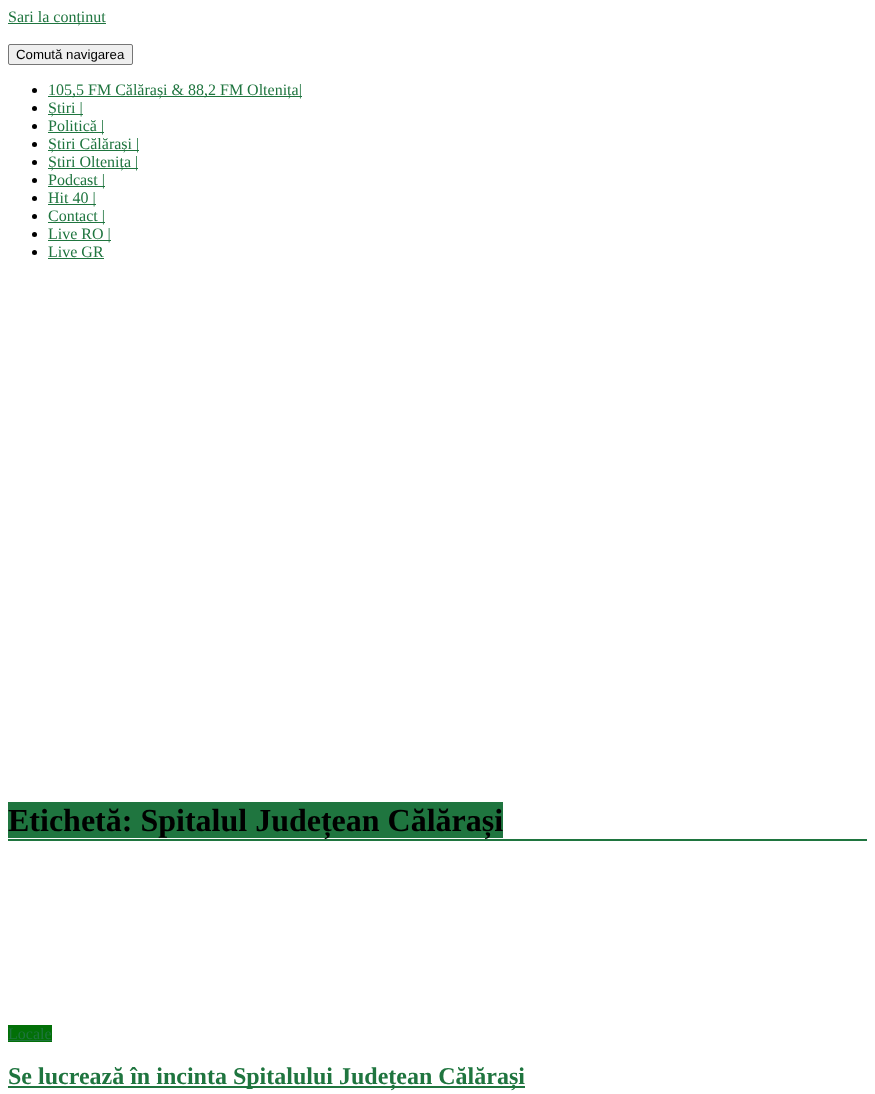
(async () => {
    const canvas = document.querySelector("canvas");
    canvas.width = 875;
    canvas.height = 1094;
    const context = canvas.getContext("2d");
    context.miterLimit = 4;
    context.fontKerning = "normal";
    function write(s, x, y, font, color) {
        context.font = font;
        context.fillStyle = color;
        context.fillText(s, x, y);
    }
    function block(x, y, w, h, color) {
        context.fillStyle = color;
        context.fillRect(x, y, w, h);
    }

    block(0, 0, 875, 1094, "rgb(255, 255, 255)");
    block(8, 23, 98, 1, "rgb(31, 117, 63)");
    write("Sari la conținut", 8, 22, "16px Liberation Serif", "rgb(31, 117, 63)");
    context.fillStyle = "rgb(239, 239, 239)";
    context.beginPath();
    context.roundRect(8.5, 44.5, 124, 20, 1.5);
    context.fill();
    context.strokeStyle = "rgb(118, 118, 118)";
    context.stroke();
    write("Comută navigarea", 16, 59, "13.25px Liberation Sans", "rgb(0, 0, 0)");
    context.beginPath();
    context.arc(34.5, 90.5, 2.5, 0, Math.PI * 2);
    context.fill();
    block(48, 96, 254, 1, "rgb(31, 117, 63)");
    write("105,5 FM Călărași & 88,2 FM Oltenița|", 48, 95, "16px Liberation Serif", "rgb(31, 117, 63)");
    context.fillStyle = "rgb(0, 0, 0)";
    context.beginPath();
    context.arc(34.5, 108.5, 2.5, 0, Math.PI * 2);
    context.fill();
    block(48, 114, 35, 1, "rgb(31, 117, 63)");
    write("Știri |", 48, 113, "16px Liberation Serif", "rgb(31, 117, 63)");
    context.fillStyle = "rgb(0, 0, 0)";
    context.beginPath();
    context.arc(34.5, 126.5, 2.5, 0, Math.PI * 2);
    context.fill();
    block(48, 132, 56, 1, "rgb(31, 117, 63)");
    write("Politică |", 48, 131, "16px Liberation Serif", "rgb(31, 117, 63)");
    context.fillStyle = "rgb(0, 0, 0)";
    context.beginPath();
    context.arc(34.5, 144.5, 2.5, 0, Math.PI * 2);
    context.fill();
    block(48, 150, 91, 1, "rgb(31, 117, 63)");
    write("Știri Călărași |", 48, 149, "16px Liberation Serif", "rgb(31, 117, 63)");
    context.fillStyle = "rgb(0, 0, 0)";
    context.beginPath();
    context.arc(34.5, 162.5, 2.5, 0, Math.PI * 2);
    context.fill();
    block(48, 168, 90, 1, "rgb(31, 117, 63)");
    write("Știri Oltenița |", 48, 167, "16px Liberation Serif", "rgb(31, 117, 63)");
    context.fillStyle = "rgb(0, 0, 0)";
    context.beginPath();
    context.arc(34.5, 180.5, 2.5, 0, Math.PI * 2);
    context.fill();
    block(48, 186, 57, 1, "rgb(31, 117, 63)");
    write("Podcast |", 48, 185, "16px Liberation Serif", "rgb(31, 117, 63)");
    context.fillStyle = "rgb(0, 0, 0)";
    context.beginPath();
    context.arc(34.5, 198.5, 2.5, 0, Math.PI * 2);
    context.fill();
    block(48, 204, 48, 1, "rgb(31, 117, 63)");
    write("Hit 40 |", 48, 203, "16px Liberation Serif", "rgb(31, 117, 63)");
    context.fillStyle = "rgb(0, 0, 0)";
    context.beginPath();
    context.arc(34.5, 216.5, 2.5, 0, Math.PI * 2);
    context.fill();
    block(48, 222, 57, 1, "rgb(31, 117, 63)");
    write("Contact |", 48, 221, "16px Liberation Serif", "rgb(31, 117, 63)");
    context.fillStyle = "rgb(0, 0, 0)";
    context.beginPath();
    context.arc(34.5, 234.5, 2.5, 0, Math.PI * 2);
    context.fill();
    block(48, 240, 63, 1, "rgb(31, 117, 63)");
    write("Live RO |", 48, 239, "16px Liberation Serif", "rgb(31, 117, 63)");
    context.fillStyle = "rgb(0, 0, 0)";
    context.beginPath();
    context.arc(34.5, 252.5, 2.5, 0, Math.PI * 2);
    context.fill();
    write("Live GR", 48, 257, "16px Liberation Serif", "rgb(31, 117, 63)");
    block(48, 258, 56, 1, "rgb(31, 117, 63)");
    block(8, 839, 859, 2, "rgb(31, 117, 63)");
    block(8, 802, 495, 36, "rgb(31, 117, 63)");
    write("Etichetă: Spitalul Județean Călărași", 8, 831, "bold 32px Liberation Serif", "rgb(0, 0, 0)");
    block(8, 1025, 44, 17, "rgb(2, 112, 7)");
    write("Locale", 8, 1039, "16px Liberation Serif", "rgb(31, 117, 63)");
    block(8, 1040, 44, 1, "rgb(31, 117, 63)");
    block(8, 1086, 517, 2, "rgb(31, 117, 63)");
    write("Se lucrează în incinta Spitalului Județean Călărași", 8, 1084, "bold 24px Liberation Serif", "rgb(31, 117, 63)");
})();
